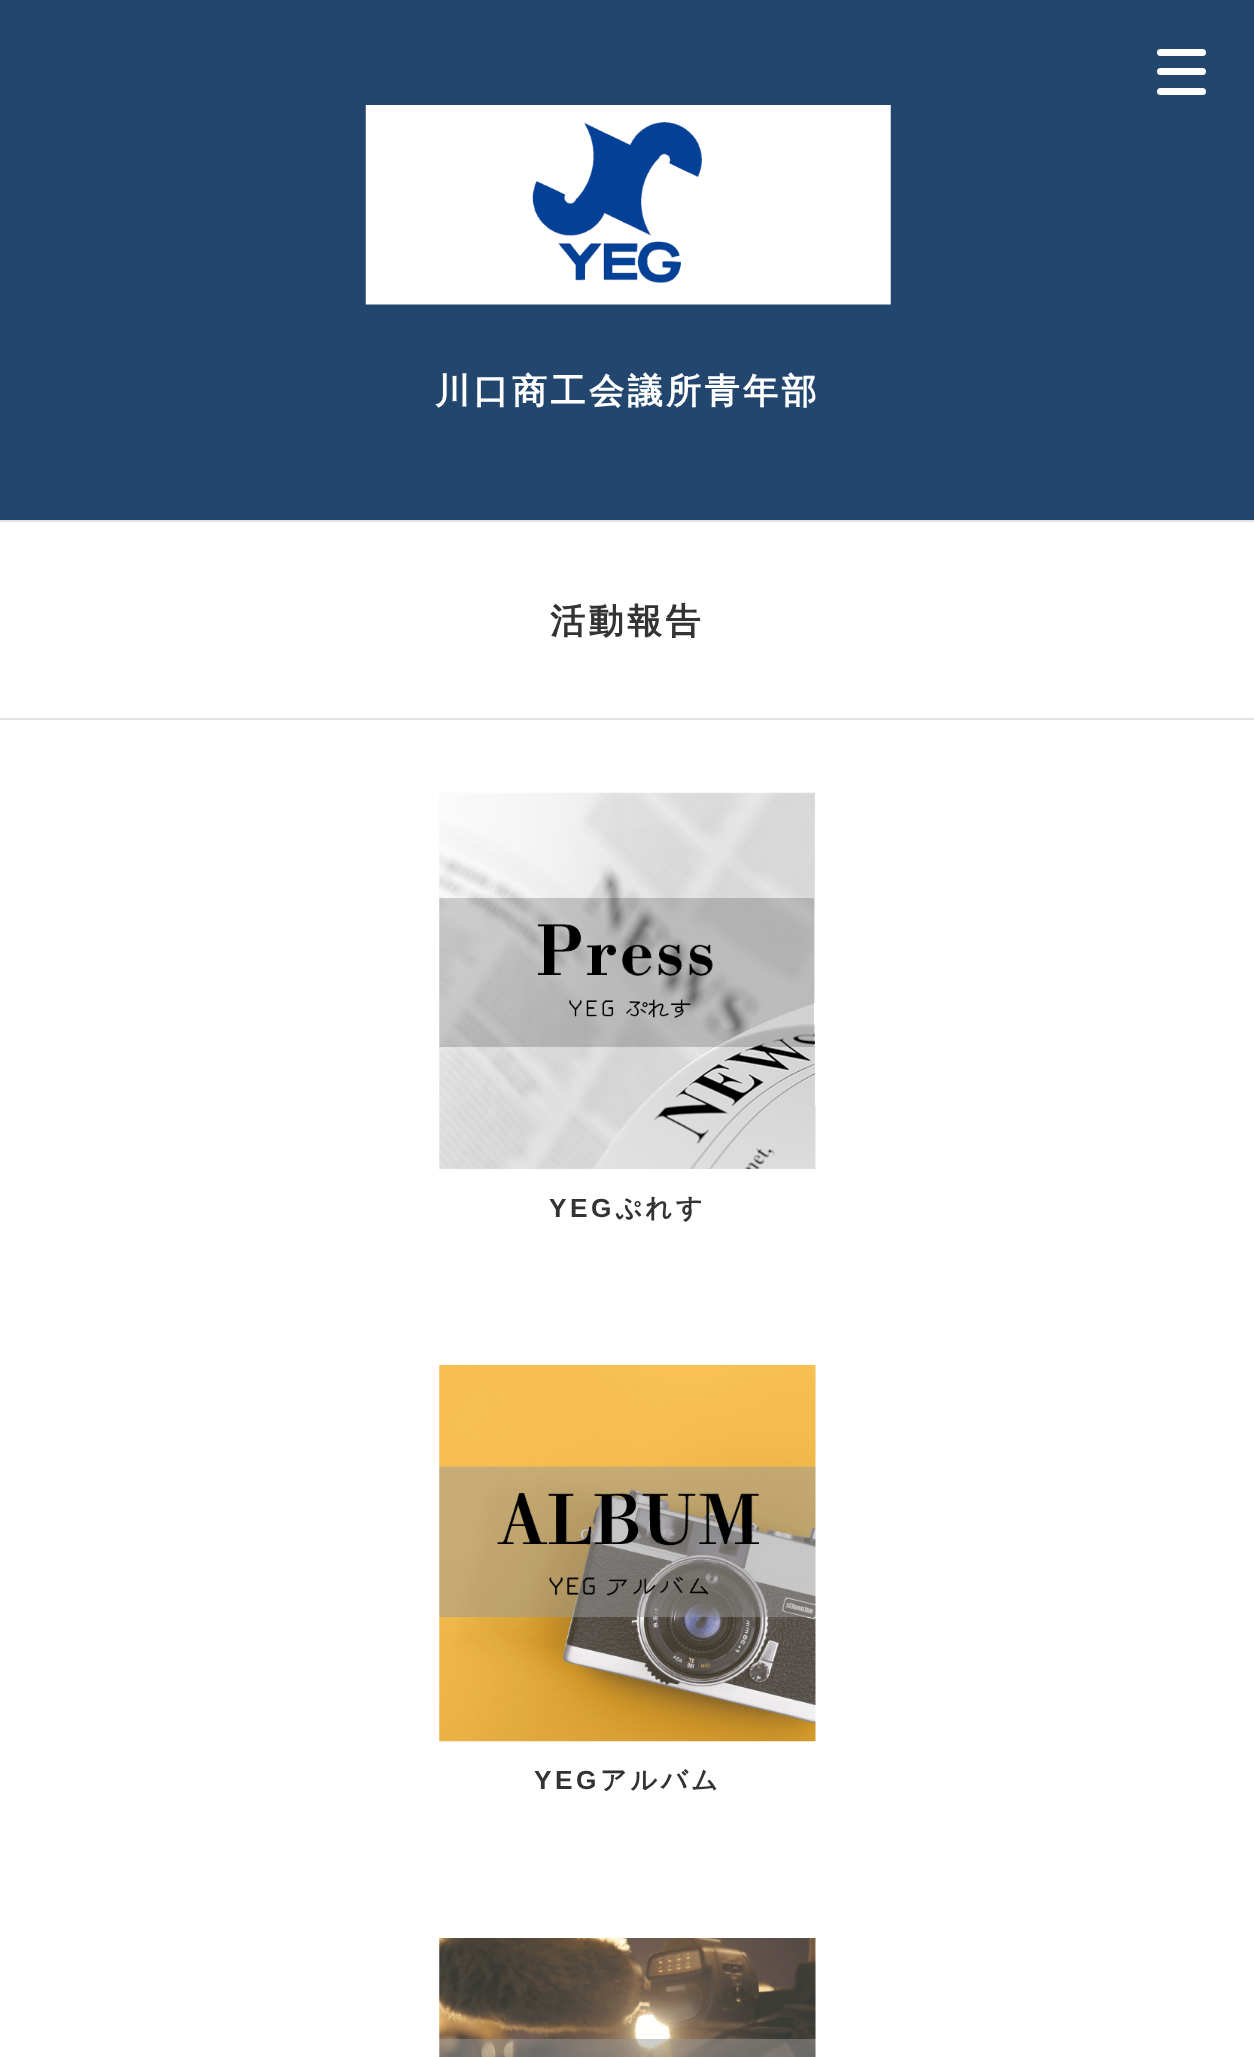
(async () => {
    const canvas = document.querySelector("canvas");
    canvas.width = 1254;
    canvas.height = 2057;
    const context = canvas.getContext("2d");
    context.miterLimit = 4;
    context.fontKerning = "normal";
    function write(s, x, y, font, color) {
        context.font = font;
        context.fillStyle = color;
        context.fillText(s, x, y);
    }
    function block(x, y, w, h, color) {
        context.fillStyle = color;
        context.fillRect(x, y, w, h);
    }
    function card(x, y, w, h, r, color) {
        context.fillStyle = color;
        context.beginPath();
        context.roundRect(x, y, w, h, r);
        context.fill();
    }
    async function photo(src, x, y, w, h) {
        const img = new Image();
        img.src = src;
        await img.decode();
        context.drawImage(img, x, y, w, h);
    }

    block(0, 0, 1254, 2057, "rgb(255, 255, 255)");
    block(0, 0, 1254, 520, "rgb(35, 70, 110)");
    block(0, 520, 1254, 2, "rgb(227, 227, 227)");
    card(1157, 49, 49, 7, 3.5, "rgb(255, 255, 255)");
    card(1157, 68, 49, 7, 3.5, "rgb(255, 255, 255)");
    card(1157, 88, 49, 7, 3.5, "rgb(255, 255, 255)");
    await photo("media/1.png", 365, 105, 526, 200);
    context.letterSpacing = "3.5px";
    write("川口商工会議所青年部", 435, 403, "bold 35px WenQuanYi Zen Hei", "rgb(255, 255, 255)");
    block(0, 718, 1254, 2, "rgb(227, 227, 227)");
    write("活動報告", 550, 633, "bold 35px WenQuanYi Zen Hei", "rgb(51, 51, 51)");
    await photo("media/2.png", 439, 792, 377, 377);
    write("YEG", 549, 1217, "bold 26.25px Liberation Sans", "rgb(51, 51, 51)");
    write("ぷれす", 615, 1217, "bold 26.25px WenQuanYi Zen Hei", "rgb(51, 51, 51)");
    await photo("media/3.png", 439, 1365, 377, 377);
    write("YEG", 534, 1789, "bold 26.25px Liberation Sans", "rgb(51, 51, 51)");
    write("アルバム", 600, 1789, "bold 26.25px WenQuanYi Zen Hei", "rgb(51, 51, 51)");
    await photo("media/4.png", 439, 1938, 377, 119);
})();
